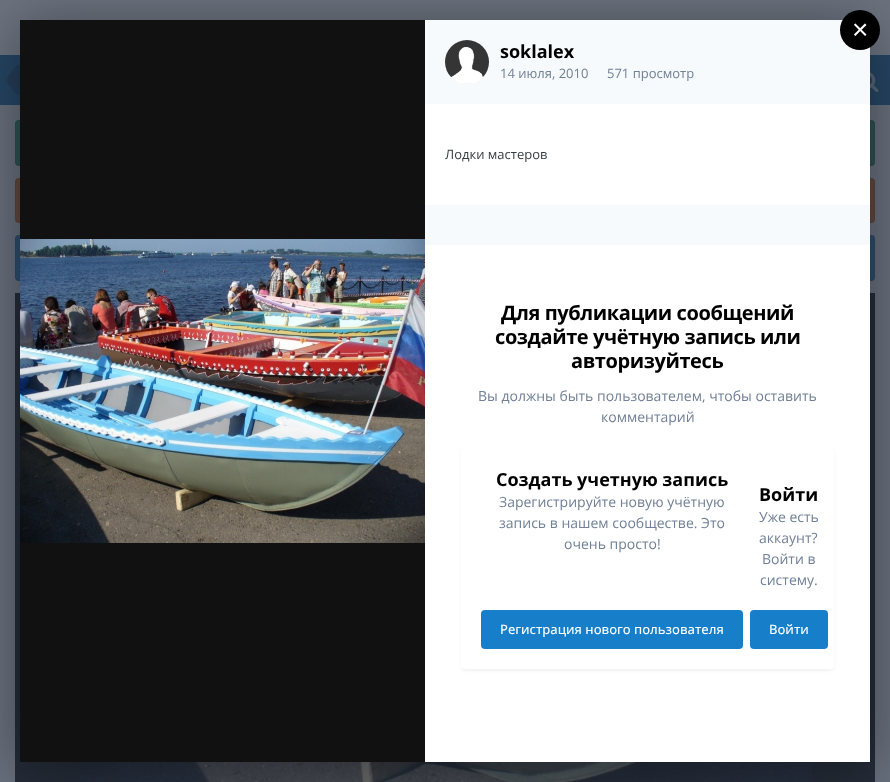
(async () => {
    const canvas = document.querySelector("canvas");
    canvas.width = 890;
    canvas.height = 782;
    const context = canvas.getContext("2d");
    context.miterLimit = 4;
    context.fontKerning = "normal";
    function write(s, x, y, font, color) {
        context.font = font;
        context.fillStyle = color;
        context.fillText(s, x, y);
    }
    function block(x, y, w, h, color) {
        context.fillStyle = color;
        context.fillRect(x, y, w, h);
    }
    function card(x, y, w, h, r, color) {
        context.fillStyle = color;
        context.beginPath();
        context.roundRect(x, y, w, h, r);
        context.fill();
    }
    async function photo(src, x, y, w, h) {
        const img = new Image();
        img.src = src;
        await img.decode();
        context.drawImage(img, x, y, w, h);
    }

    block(0, 0, 890, 782, "rgb(103, 111, 124)");
    block(0, 0, 890, 55, "rgb(108, 115, 127)");
    block(0, 55, 890, 50, "rgb(37, 69, 99)");
    context.fillStyle = "rgb(36, 61, 87)";
    context.beginPath();
    context.moveTo(20, 80);
    context.lineTo(20, 95);
    context.bezierCurveTo(15.5, 95, 13.5, 90.5, 11, 87);
    context.bezierCurveTo(9.5, 85, 7, 83, 7, 80);
    context.closePath();
    context.moveTo(20, 80);
    context.lineTo(7, 80);
    context.bezierCurveTo(7, 77, 9.5, 75, 11, 73);
    context.bezierCurveTo(13.5, 69.5, 15.5, 65, 20, 65);
    context.closePath();
    context.fill();
    await photo("media/1.png", 870, 72, 9, 21);
    card(15, 120, 860, 46, 4, "rgb(45, 81, 82)");
    context.fillStyle = "rgb(51, 84, 86)";
    context.beginPath();
    context.moveTo(19, 122);
    context.lineTo(871, 122);
    context.bezierCurveTo(873, 122, 874, 123, 874, 125);
    context.bezierCurveTo(874, 123, 873, 121, 871, 121);
    context.lineTo(19, 121);
    context.bezierCurveTo(17, 121, 16, 123, 16, 125);
    context.bezierCurveTo(16, 123, 17, 122, 19, 122);
    context.closePath();
    context.fill();
    context.beginPath();
    context.roundRect(15.5, 120.5, 859, 45, 3.5);
    context.strokeStyle = "rgba(31, 39, 50, 0.1)";
    context.stroke();
    card(15, 178, 860, 45, 4, "rgb(98, 71, 60)");
    context.fillStyle = "rgb(99, 75, 67)";
    context.beginPath();
    context.moveTo(19, 180);
    context.lineTo(871, 180);
    context.bezierCurveTo(873, 180, 874, 181, 874, 183);
    context.bezierCurveTo(874, 181, 873, 179, 871, 179);
    context.lineTo(19, 179);
    context.bezierCurveTo(17, 179, 16, 181, 16, 183);
    context.bezierCurveTo(16, 181, 17, 180, 19, 180);
    context.closePath();
    context.fill();
    context.beginPath();
    context.roundRect(15.5, 178.5, 859, 44, 3.5);
    context.stroke();
    card(15, 235, 860, 46, 4, "rgb(44, 77, 108)");
    context.fillStyle = "rgb(50, 81, 110)";
    context.beginPath();
    context.moveTo(19, 237);
    context.lineTo(871, 237);
    context.bezierCurveTo(873, 237, 874, 238, 874, 240);
    context.bezierCurveTo(874, 238, 873, 236, 871, 236);
    context.lineTo(19, 236);
    context.bezierCurveTo(17, 236, 16, 238, 16, 240);
    context.bezierCurveTo(16, 238, 17, 237, 19, 237);
    context.closePath();
    context.fill();
    context.beginPath();
    context.roundRect(15.5, 235.5, 859, 45, 3.5);
    context.stroke();
    block(15, 293, 860, 489, "rgb(37, 44, 56)");
    await photo("media/4.png", 79, 762, 733, 20);
    context.fillStyle = "rgba(0, 0, 0, 0.4)";
    context.filter = "blur(27.5px)";
    context.beginPath();
    context.rect(20, 25, 850, 742);
    context.fill();
    context.filter = "none";
    block(425, 20, 445, 84, "rgb(247, 250, 252)");
    context.fillStyle = "rgb(0, 0, 0)";
    context.beginPath();
    context.arc(860, 30, 20, 0, Math.PI * 2);
    context.fill();
    write("×", 852, 39, "28px Liberation Sans", "rgb(255, 255, 255)");
    block(20, 20, 405, 742, "rgb(17, 17, 17)");
    await photo("media/2.png", 20, 239, 405, 304);
    block(425, 104, 445, 658, "rgb(255, 255, 255)");
    context.beginPath();
    context.arc(467, 62, 22, 0, Math.PI * 2);
    context.fill();
    await photo("media/3.png", 445, 40, 44, 44);
    write("soklalex", 500, 58, "bold 18px Open Sans", "rgb(0, 0, 0)");
    write("14 июля, 2010", 500, 78, "13px Open Sans", "rgb(113, 128, 150)");
    write("571 просмотр", 607, 78, "13px Open Sans", "rgb(113, 128, 150)");
    write("Лодки мастеров", 445, 159, "13px Open Sans", "rgb(53, 60, 65)");
    block(425, 205, 445, 40, "rgb(247, 250, 252)");
    context.letterSpacing = "-0.4px";
    write("Для публикации сообщений", 501, 320, "bold 20px Open Sans", "rgb(0, 0, 0)");
    write("создайте учётную запись или", 495, 344, "bold 20px Open Sans", "rgb(0, 0, 0)");
    write("авторизуйтесь", 571, 368, "bold 20px Open Sans", "rgb(0, 0, 0)");
    context.letterSpacing = "0px";
    write("Вы должны быть пользователем, чтобы оставить", 478, 401, "14px Open Sans", "rgb(113, 128, 150)");
    write("комментарий", 601, 422, "14px Open Sans", "rgb(113, 128, 150)");
    context.fillStyle = "rgba(45, 55, 72, 0.1)";
    context.filter = "blur(2px)";
    context.beginPath();
    context.roundRect(462, 450, 371, 220, 3);
    context.fill();
    context.filter = "none";
    card(461, 447, 373, 222, 4, "rgb(255, 255, 255)");
    write("Создать учетную запись", 496, 486, "bold 18px Open Sans", "rgb(0, 0, 0)");
    write("Зарегистрируйте новую учётную", 499, 507, "14px Open Sans", "rgb(113, 128, 150)");
    write("запись в нашем сообществе. Это", 499, 528, "14px Open Sans", "rgb(113, 128, 150)");
    write("очень просто!", 564, 549, "14px Open Sans", "rgb(113, 128, 150)");
    card(481, 610, 262, 39, 4, "rgb(23, 126, 201)");
    write("Регистрация нового пользователя", 500, 634, "500 13px Open Sans", "rgb(255, 255, 255)");
    write("Войти", 759, 501, "bold 18px Open Sans", "rgb(0, 0, 0)");
    write("Уже есть", 759, 522, "14px Open Sans", "rgb(113, 128, 150)");
    write("аккаунт?", 759, 543, "14px Open Sans", "rgb(113, 128, 150)");
    write("Войти в", 762, 564, "14px Open Sans", "rgb(113, 128, 150)");
    write("систему.", 760, 585, "14px Open Sans", "rgb(113, 128, 150)");
    card(750, 610, 78, 39, 4, "rgb(23, 126, 201)");
    write("Войти", 769, 634, "500 13px Open Sans", "rgb(255, 255, 255)");
})();
